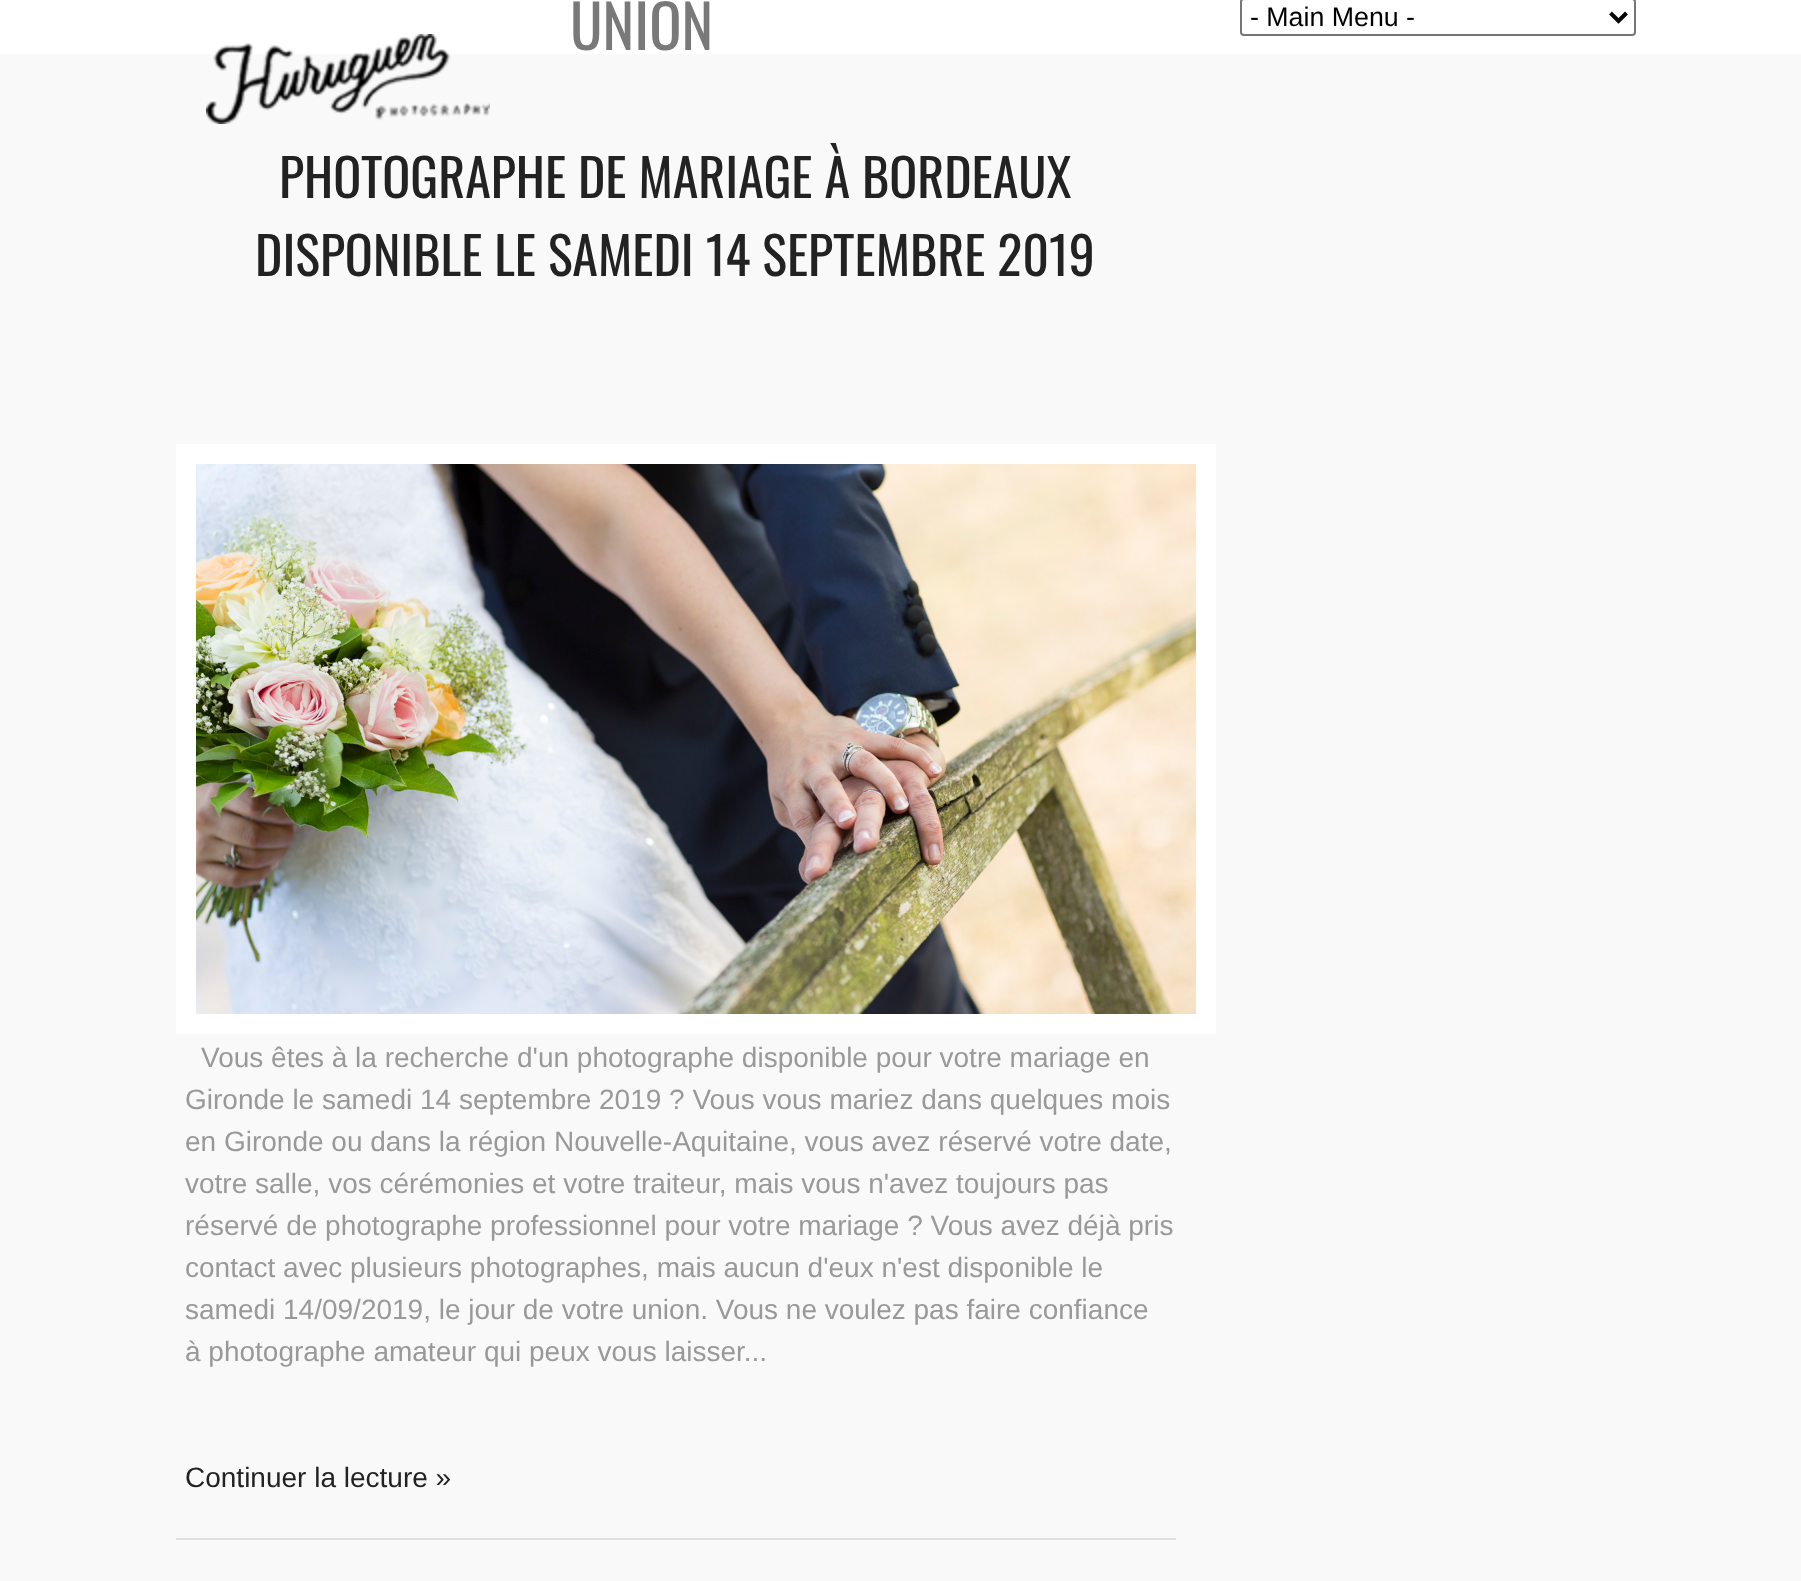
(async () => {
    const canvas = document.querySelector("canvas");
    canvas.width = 1801;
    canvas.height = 1581;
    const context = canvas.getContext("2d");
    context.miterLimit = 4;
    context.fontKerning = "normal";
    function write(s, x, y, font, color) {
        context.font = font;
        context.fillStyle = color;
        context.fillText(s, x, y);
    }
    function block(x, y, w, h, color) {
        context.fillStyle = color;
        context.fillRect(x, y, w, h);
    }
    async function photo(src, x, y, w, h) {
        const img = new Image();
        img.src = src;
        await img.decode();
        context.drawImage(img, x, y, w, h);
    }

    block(0, 0, 1801, 1581, "rgb(255, 255, 255)");
    write("UNION", 570, 50, "60px Oswald", "rgb(121, 121, 121)");
    context.beginPath();
    context.roundRect(1241, -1, 394, 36, 3);
    context.strokeStyle = "rgb(118, 118, 118)";
    context.lineWidth = 2;
    context.stroke();
    context.beginPath();
    context.moveTo(1610.5, 13);
    context.lineTo(1618.5, 21);
    context.lineTo(1626.5, 13);
    context.strokeStyle = "rgb(0, 0, 0)";
    context.lineWidth = 4;
    context.stroke();
    write("- Main Menu -", 1250, 26, "26.75px Liberation Sans", "rgb(0, 0, 0)");
    block(0, 54, 1801, 1527, "rgb(249, 249, 249)");
    await photo("media/1.png", 206, 34, 284, 90);
    block(176, 1538, 1000, 2, "rgb(224, 224, 224)");
    write("PHOTOGRAPHE DE MARIAGE À BORDEAUX", 279, 198, "52px Oswald", "rgb(34, 34, 34)");
    write("DISPONIBLE LE SAMEDI 14 SEPTEMBRE 2019", 255, 276, "52px Oswald", "rgb(34, 34, 34)");
    context.strokeStyle = "rgb(255, 255, 255)";
    context.lineWidth = 20;
    context.strokeRect(186, 454, 1020, 570);
    await photo("media/2.png", 196, 464, 1000, 550);
    write("Vous êtes à la recherche d'un photographe disponible pour votre mariage en", 201, 1067, "28px Liberation Sans", "rgb(153, 153, 153)");
    write("Gironde le samedi 14 septembre 2019 ? Vous vous mariez dans quelques mois", 185, 1109, "28px Liberation Sans", "rgb(153, 153, 153)");
    write("en Gironde ou dans la région Nouvelle-Aquitaine, vous avez réservé votre date,", 185, 1151, "28px Liberation Sans", "rgb(153, 153, 153)");
    write("votre salle, vos cérémonies et votre traiteur, mais vous n'avez toujours pas", 185, 1193, "28px Liberation Sans", "rgb(153, 153, 153)");
    write("réservé de photographe professionnel pour votre mariage ? Vous avez déjà pris", 185, 1235, "28px Liberation Sans", "rgb(153, 153, 153)");
    write("contact avec plusieurs photographes, mais aucun d'eux n'est disponible le", 185, 1277, "28px Liberation Sans", "rgb(153, 153, 153)");
    write("samedi 14/09/2019, le jour de votre union. Vous ne voulez pas faire confiance", 185, 1319, "28px Liberation Sans", "rgb(153, 153, 153)");
    write("à photographe amateur qui peux vous laisser...", 185, 1361, "28px Liberation Sans", "rgb(153, 153, 153)");
    write("Continuer la lecture »", 185, 1487, "28px Liberation Sans", "rgb(34, 34, 34)");
})();
